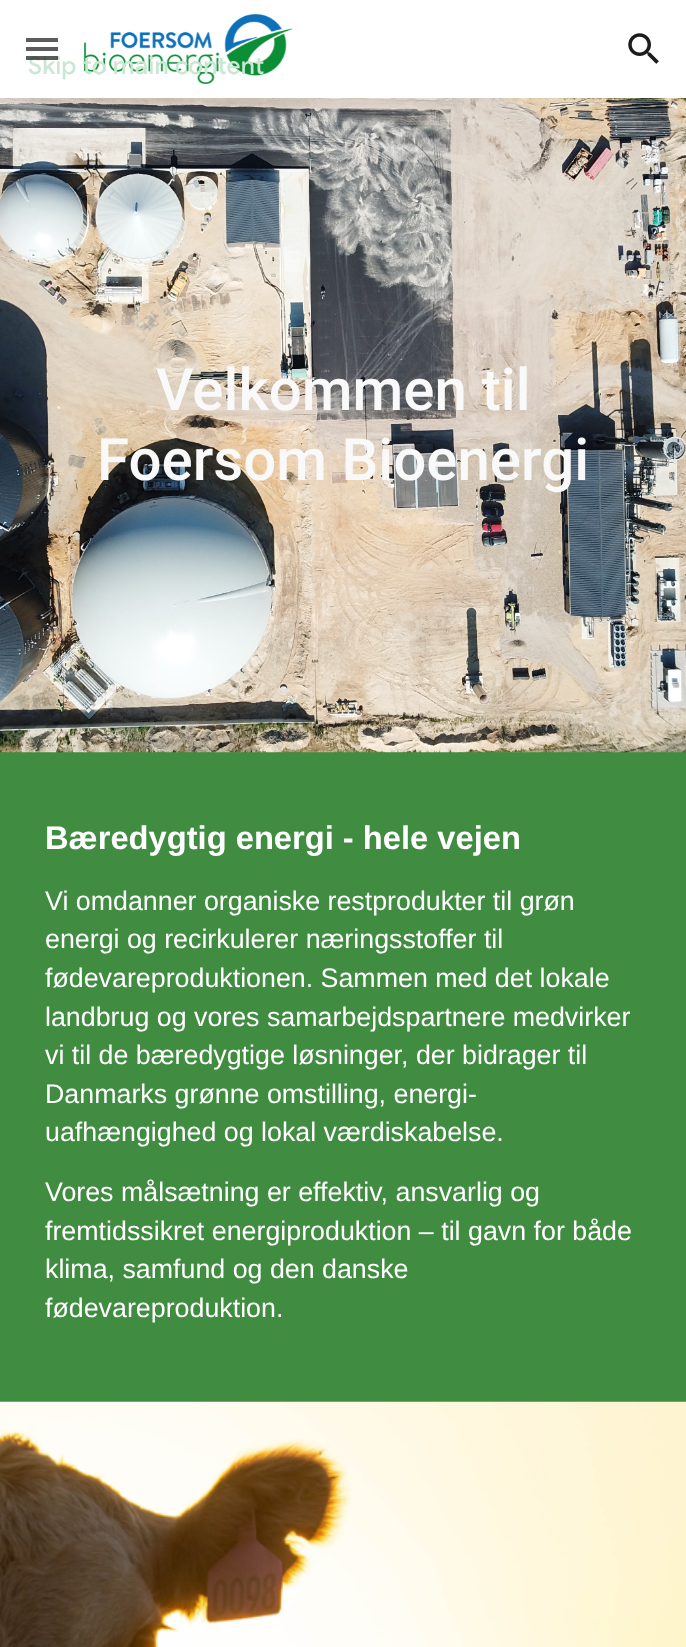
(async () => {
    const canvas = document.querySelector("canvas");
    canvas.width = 686;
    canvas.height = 1647;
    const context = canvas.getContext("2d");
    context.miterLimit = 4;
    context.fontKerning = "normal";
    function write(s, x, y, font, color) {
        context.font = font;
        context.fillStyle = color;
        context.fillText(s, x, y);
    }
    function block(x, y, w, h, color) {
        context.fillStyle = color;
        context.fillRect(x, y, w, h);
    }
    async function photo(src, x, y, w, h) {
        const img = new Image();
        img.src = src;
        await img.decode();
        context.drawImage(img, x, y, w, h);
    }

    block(0, 0, 686, 1647, "rgb(64, 140, 65)");
    block(0, 0, 686, 98, "rgb(255, 255, 255)");
    await photo("media/1.png", 84, 14, 209, 70);
    context.letterSpacing = "0.25px";
    write("Skip to main content", 28, 74, "500 24.5px Google Sans", "rgb(203, 231, 212)");
    await photo("media/2.png", 628, 33, 31, 31);
    block(26, 38, 32, 4, "rgb(92, 92, 92)");
    block(26, 47, 32, 4, "rgb(92, 92, 92)");
    block(26, 56, 32, 4, "rgba(28, 28, 28, 0.72)");
    await photo("media/3.png", 0, 98, 686, 655);
    context.letterSpacing = "0px";
    write("Velkommen til", 156, 410, "500 58.25px Roboto", "rgb(249, 249, 249)");
    write("Foersom Bioenergi", 97, 480, "500 58.25px Roboto", "rgb(249, 249, 249)");
    write("Bæredygtig energi - hele vejen", 45, 849, "bold 32.7px Liberation Sans", "rgb(255, 255, 255)");
    write("Vi omdanner organiske restprodukter til grøn", 45, 910, "26.8px Liberation Sans", "rgb(255, 255, 255)");
    write("energi og recirkulerer næringsstoffer til", 45, 948, "26.8px Liberation Sans", "rgb(255, 255, 255)");
    write("fødevareproduktionen. Sammen med det lokale", 45, 987, "26.8px Liberation Sans", "rgb(255, 255, 255)");
    write("landbrug og vores samarbejdspartnere medvirker", 45, 1026, "26.8px Liberation Sans", "rgb(255, 255, 255)");
    write("vi til de bæredygtige løsninger, der bidrager til", 45, 1064, "26.8px Liberation Sans", "rgb(255, 255, 255)");
    write("Danmarks grønne omstilling, energi-", 45, 1103, "26.8px Liberation Sans", "rgb(255, 255, 255)");
    write("uafhængighed og lokal værdiskabelse.", 45, 1141, "26.8px Liberation Sans", "rgb(255, 255, 255)");
    write("Vores målsætning er effektiv, ansvarlig og", 45, 1201, "26.8px Liberation Sans", "rgb(255, 255, 255)");
    write("fremtidssikret energiproduktion – til gavn for både", 45, 1240, "26.8px Liberation Sans", "rgb(255, 255, 255)");
    write("klima, samfund og den danske", 45, 1278, "26.8px Liberation Sans", "rgb(255, 255, 255)");
    write("fødevareproduktion.", 45, 1317, "26.8px Liberation Sans", "rgb(255, 255, 255)");
    await photo("media/4.png", 0, 1401, 686, 246);
})();
